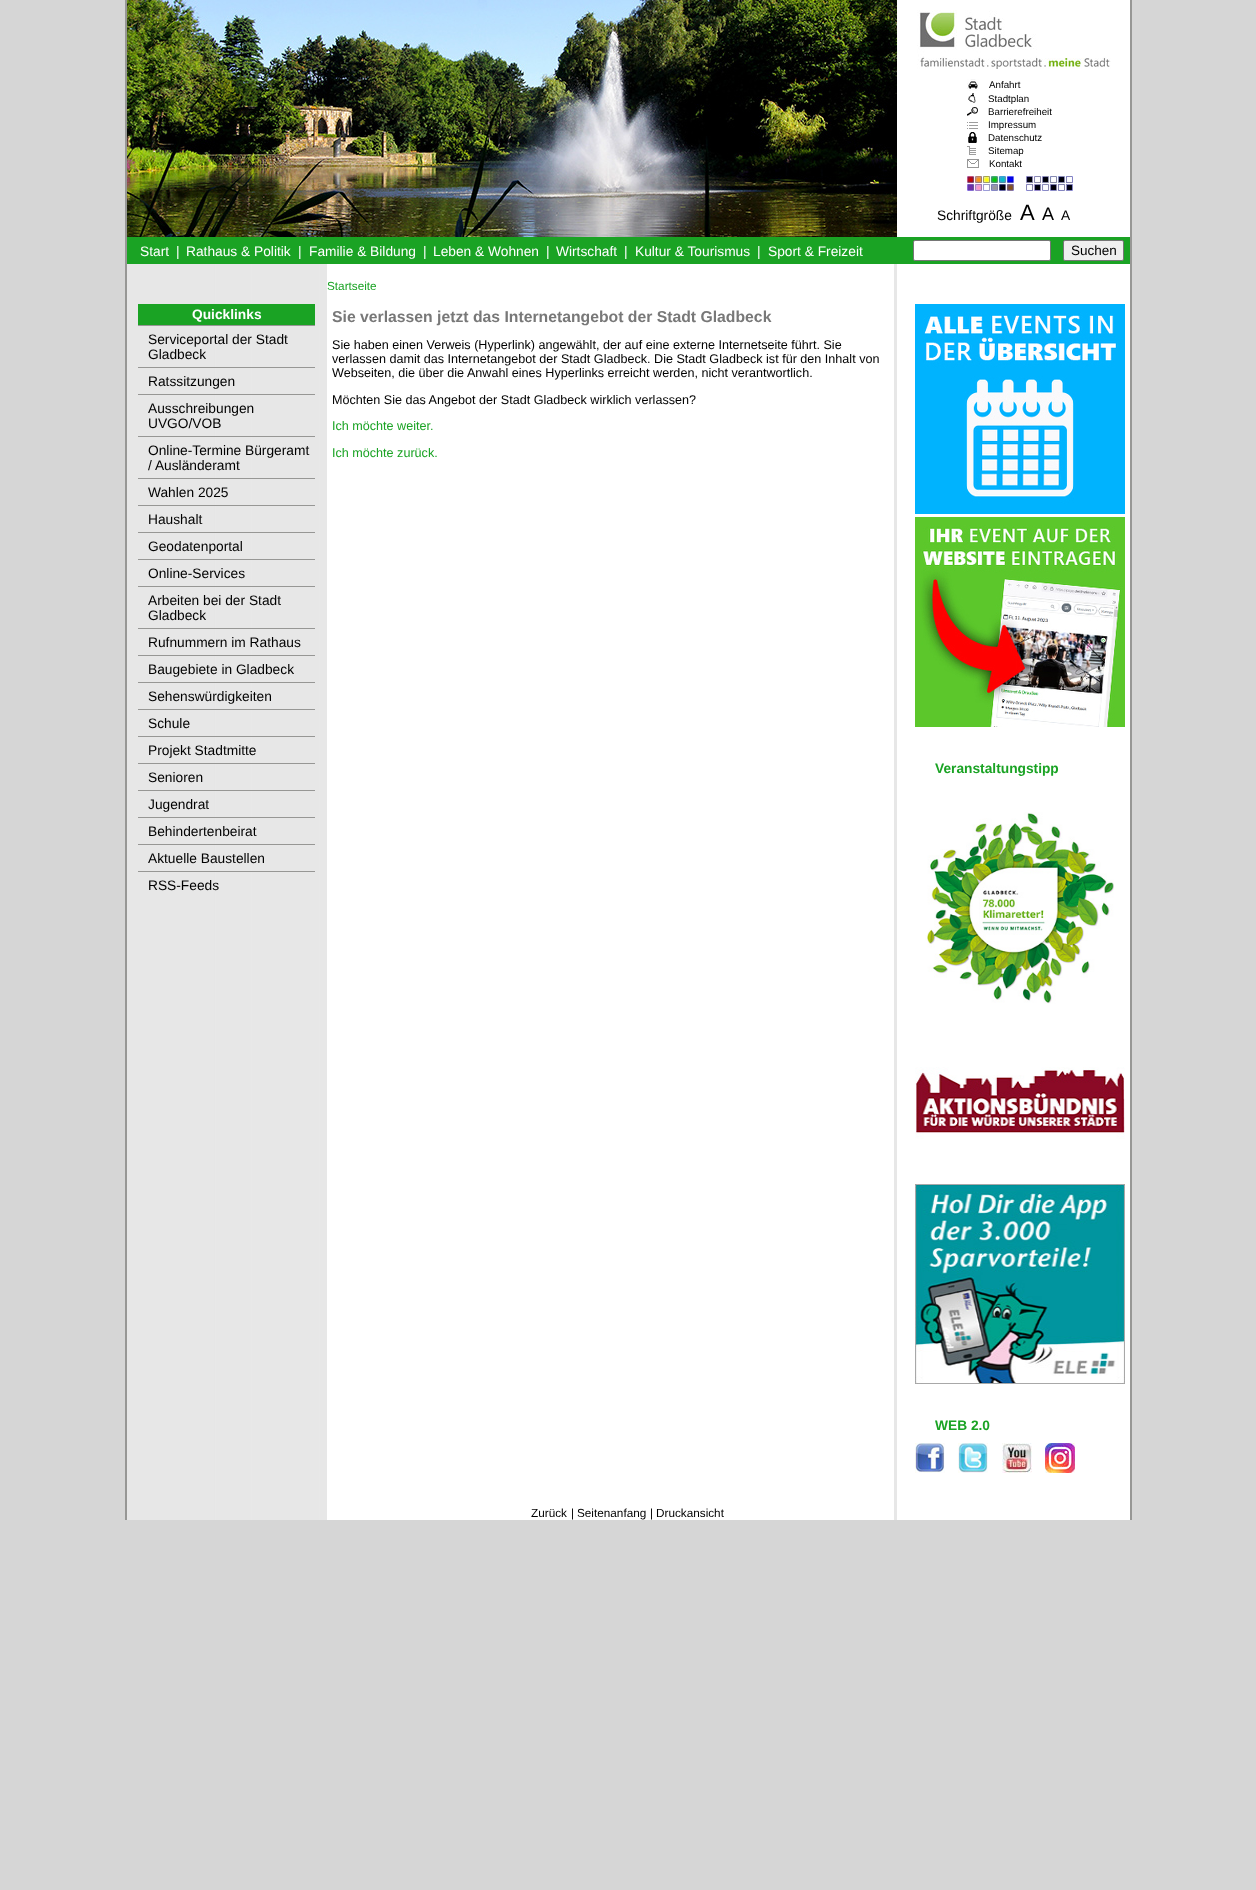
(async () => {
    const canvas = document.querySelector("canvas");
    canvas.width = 1256;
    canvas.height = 1890;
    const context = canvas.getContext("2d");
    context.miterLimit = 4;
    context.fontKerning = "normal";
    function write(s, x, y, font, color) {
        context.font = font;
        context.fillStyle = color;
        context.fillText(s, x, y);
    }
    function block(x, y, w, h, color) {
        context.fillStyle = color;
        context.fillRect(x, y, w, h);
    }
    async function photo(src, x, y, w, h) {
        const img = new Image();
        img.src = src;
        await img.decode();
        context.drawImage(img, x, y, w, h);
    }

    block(0, 0, 1256, 1890, "rgb(214, 214, 214)");
    await photo("media/1.png", 127, 264, 1003, 1256);
    block(1130, 0, 2, 1520, "rgb(151, 151, 149)");
    block(125, 0, 2, 1520, "rgb(151, 151, 149)");
    block(897, 0, 233, 237, "rgb(255, 255, 255)");
    await photo("media/2.png", 127, 0, 770, 237);
    await photo("media/3.png", 917, 10, 194, 59);
    await photo("media/4.png", 967, 79, 12, 12);
    write("Anfahrt", 989, 88, "9.75px Liberation Sans", "rgb(0, 0, 0)");
    await photo("media/5.png", 968, 93, 8, 10);
    write("Stadtplan", 988, 102, "9.75px Liberation Sans", "rgb(0, 0, 0)");
    await photo("media/6.png", 967, 107, 11, 9);
    write("Barrierefreiheit", 988, 115, "9.75px Liberation Sans", "rgb(0, 0, 0)");
    await photo("media/7.png", 967, 122, 11, 7);
    write("Impressum", 988, 128, "9.75px Liberation Sans", "rgb(0, 0, 0)");
    await photo("media/8.png", 968, 132, 9, 11);
    write("Datenschutz", 988, 141, "9.75px Liberation Sans", "rgb(0, 0, 0)");
    await photo("media/9.png", 967, 146, 9, 9);
    write("Sitemap", 988, 154, "9.75px Liberation Sans", "rgb(0, 0, 0)");
    await photo("media/10.png", 967, 159, 12, 9);
    write("Kontakt", 989, 167, "9.75px Liberation Sans", "rgb(0, 0, 0)");
    await photo("media/11.png", 967, 176, 47, 15);
    await photo("media/12.png", 1026, 176, 47, 15);
    write("Schriftgröße", 937, 220, "13.75px Liberation Sans", "rgb(0, 0, 0)");
    write("A", 1020, 220, "22px Liberation Sans", "rgb(0, 0, 0)");
    write("A", 1042, 220, "18px Liberation Sans", "rgb(0, 0, 0)");
    write("A", 1061, 220, "13.75px Liberation Sans", "rgb(0, 0, 0)");
    block(127, 237, 1003, 27, "rgb(26, 163, 36)");
    write("Start", 140, 256, "13.75px Liberation Sans", "rgb(255, 255, 255)");
    write("|", 176, 256, "13.75px Liberation Sans", "rgb(255, 255, 255)");
    write("Rathaus & Politik", 186, 256, "13.75px Liberation Sans", "rgb(255, 255, 255)");
    write("|", 298, 256, "13.75px Liberation Sans", "rgb(255, 255, 255)");
    write("Familie & Bildung", 309, 256, "13.75px Liberation Sans", "rgb(255, 255, 255)");
    write("|", 423, 256, "13.75px Liberation Sans", "rgb(255, 255, 255)");
    write("Leben & Wohnen", 433, 256, "13.75px Liberation Sans", "rgb(255, 255, 255)");
    write("|", 546, 256, "13.75px Liberation Sans", "rgb(255, 255, 255)");
    write("Wirtschaft", 556, 256, "13.75px Liberation Sans", "rgb(255, 255, 255)");
    write("|", 624, 256, "13.75px Liberation Sans", "rgb(255, 255, 255)");
    write("Kultur & Tourismus", 635, 256, "13.75px Liberation Sans", "rgb(255, 255, 255)");
    write("|", 757, 256, "13.75px Liberation Sans", "rgb(255, 255, 255)");
    write("Sport & Freizeit", 768, 256, "13.75px Liberation Sans", "rgb(255, 255, 255)");
    context.beginPath();
    context.roundRect(913.5, 240.5, 137, 20, 1.5);
    context.fill();
    context.strokeStyle = "rgb(118, 118, 118)";
    context.stroke();
    context.fillStyle = "rgb(239, 239, 239)";
    context.beginPath();
    context.roundRect(1063.5, 240.5, 60, 20, 1.5);
    context.fill();
    context.stroke();
    write("Suchen", 1071, 255, "13.5px Liberation Sans", "rgb(0, 0, 0)");
    write("Startseite", 327, 290, "11.75px Liberation Sans", "rgb(26, 163, 36)");
    block(138, 304, 177, 21, "rgb(26, 163, 36)");
    write("Quicklinks", 192, 319, "bold 13.75px Liberation Sans", "rgb(255, 255, 255)");
    block(138, 325, 177, 1, "rgb(151, 151, 149)");
    write("Serviceportal der Stadt", 148, 344, "13.75px Liberation Sans", "rgb(0, 0, 0)");
    write("Gladbeck", 148, 359, "13.75px Liberation Sans", "rgb(0, 0, 0)");
    block(138, 367, 177, 1, "rgb(151, 151, 149)");
    write("Ratssitzungen", 148, 386, "13.75px Liberation Sans", "rgb(0, 0, 0)");
    block(138, 394, 177, 1, "rgb(151, 151, 149)");
    write("Ausschreibungen", 148, 413, "13.75px Liberation Sans", "rgb(0, 0, 0)");
    write("UVGO/VOB", 148, 428, "13.75px Liberation Sans", "rgb(0, 0, 0)");
    block(138, 436, 177, 1, "rgb(151, 151, 149)");
    write("Online-Termine Bürgeramt", 148, 455, "13.75px Liberation Sans", "rgb(0, 0, 0)");
    write("/ Ausländeramt", 148, 470, "13.75px Liberation Sans", "rgb(0, 0, 0)");
    block(138, 478, 177, 1, "rgb(151, 151, 149)");
    write("Wahlen 2025", 148, 497, "13.75px Liberation Sans", "rgb(0, 0, 0)");
    block(138, 505, 177, 1, "rgb(151, 151, 149)");
    write("Haushalt", 148, 524, "13.75px Liberation Sans", "rgb(0, 0, 0)");
    block(138, 532, 177, 1, "rgb(151, 151, 149)");
    write("Geodatenportal", 148, 551, "13.75px Liberation Sans", "rgb(0, 0, 0)");
    block(138, 559, 177, 1, "rgb(151, 151, 149)");
    write("Online-Services", 148, 578, "13.75px Liberation Sans", "rgb(0, 0, 0)");
    block(138, 586, 177, 1, "rgb(151, 151, 149)");
    write("Arbeiten bei der Stadt", 148, 605, "13.75px Liberation Sans", "rgb(0, 0, 0)");
    write("Gladbeck", 148, 620, "13.75px Liberation Sans", "rgb(0, 0, 0)");
    block(138, 628, 177, 1, "rgb(151, 151, 149)");
    write("Rufnummern im Rathaus", 148, 647, "13.75px Liberation Sans", "rgb(0, 0, 0)");
    block(138, 655, 177, 1, "rgb(151, 151, 149)");
    write("Baugebiete in Gladbeck", 148, 674, "13.75px Liberation Sans", "rgb(0, 0, 0)");
    block(138, 682, 177, 1, "rgb(151, 151, 149)");
    write("Sehenswürdigkeiten", 148, 701, "13.75px Liberation Sans", "rgb(0, 0, 0)");
    block(138, 709, 177, 1, "rgb(151, 151, 149)");
    write("Schule", 148, 728, "13.75px Liberation Sans", "rgb(0, 0, 0)");
    block(138, 736, 177, 1, "rgb(151, 151, 149)");
    write("Projekt Stadtmitte", 148, 755, "13.75px Liberation Sans", "rgb(0, 0, 0)");
    block(138, 763, 177, 1, "rgb(151, 151, 149)");
    write("Senioren", 148, 782, "13.75px Liberation Sans", "rgb(0, 0, 0)");
    block(138, 790, 177, 1, "rgb(151, 151, 149)");
    write("Jugendrat", 148, 809, "13.75px Liberation Sans", "rgb(0, 0, 0)");
    block(138, 817, 177, 1, "rgb(151, 151, 149)");
    write("Behindertenbeirat", 148, 836, "13.75px Liberation Sans", "rgb(0, 0, 0)");
    block(138, 844, 177, 1, "rgb(151, 151, 149)");
    write("Aktuelle Baustellen", 148, 863, "13.75px Liberation Sans", "rgb(0, 0, 0)");
    block(138, 871, 177, 1, "rgb(151, 151, 149)");
    write("RSS-Feeds", 148, 890, "13.75px Liberation Sans", "rgb(0, 0, 0)");
    write("Sie verlassen jetzt das Internetangebot der Stadt Gladbeck", 332, 322, "bold 15.75px Liberation Sans", "rgb(120, 120, 120)");
    write("Sie haben einen Verweis (Hyperlink) angewählt, der auf eine externe Internetseite führt. Sie", 332, 349, "12.6px Liberation Sans", "rgb(0, 0, 0)");
    write("verlassen damit das Internetangebot der Stadt Gladbeck. Die Stadt Gladbeck ist für den Inhalt von", 332, 363, "12.6px Liberation Sans", "rgb(0, 0, 0)");
    write("Webseiten, die über die Anwahl eines Hyperlinks erreicht werden, nicht verantwortlich.", 332, 377, "12.6px Liberation Sans", "rgb(0, 0, 0)");
    write("Möchten Sie das Angebot der Stadt Gladbeck wirklich verlassen?", 332, 404, "12.6px Liberation Sans", "rgb(0, 0, 0)");
    write("Ich möchte weiter.", 332, 430, "12.6px Liberation Sans", "rgb(26, 163, 36)");
    write("Ich möchte zurück.", 332, 457, "12.6px Liberation Sans", "rgb(26, 163, 36)");
    await photo("media/13.png", 915, 304, 210, 210);
    await photo("media/14.png", 915, 517, 210, 210);
    write("Veranstaltungstipp", 935, 773, "bold 13.75px Liberation Sans", "rgb(26, 163, 36)");
    await photo("media/15.png", 925, 812, 189, 192);
    await photo("media/16.png", 915, 1067, 210, 72);
    await photo("media/17.png", 915, 1184, 210, 200);
    write("WEB 2.0", 935, 1430, "bold 13.75px Liberation Sans", "rgb(26, 163, 36)");
    await photo("media/18.png", 915, 1443, 30, 30);
    await photo("media/19.png", 958, 1443, 30, 30);
    await photo("media/20.png", 1002, 1443, 30, 30);
    await photo("media/21.png", 1045, 1443, 30, 30);
    write("Zurück", 531, 1517, "11.75px Liberation Sans", "rgb(0, 0, 0)");
    write("|", 571, 1517, "11.75px Liberation Sans", "rgb(0, 0, 0)");
    write("Seitenanfang", 577, 1517, "11.75px Liberation Sans", "rgb(0, 0, 0)");
    write("|", 650, 1517, "11.75px Liberation Sans", "rgb(0, 0, 0)");
    write("Druckansicht", 656, 1517, "11.75px Liberation Sans", "rgb(0, 0, 0)");
})();
